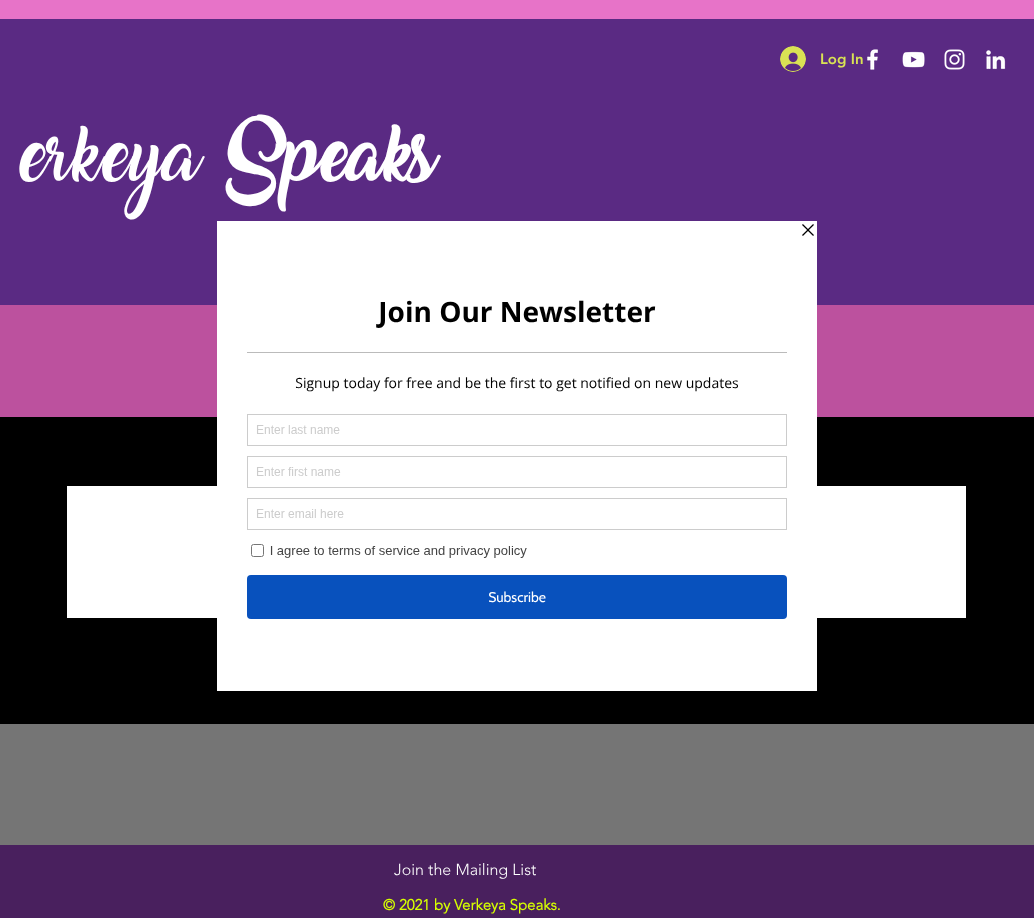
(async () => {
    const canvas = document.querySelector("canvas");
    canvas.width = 1034;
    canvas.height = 918;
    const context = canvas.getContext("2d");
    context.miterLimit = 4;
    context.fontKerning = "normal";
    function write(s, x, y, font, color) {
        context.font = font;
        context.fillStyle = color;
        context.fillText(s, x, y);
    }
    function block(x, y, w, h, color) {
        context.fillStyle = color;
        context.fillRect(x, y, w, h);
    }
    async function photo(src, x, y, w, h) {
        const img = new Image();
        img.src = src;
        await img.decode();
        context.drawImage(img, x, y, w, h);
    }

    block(0, 0, 1034, 918, "rgb(117, 117, 117)");
    block(0, 0, 1034, 19, "rgb(231, 115, 200)");
    block(0, 19, 1034, 286, "rgb(90, 42, 131)");
    await photo("media/1.png", 780, 46, 26, 26);
    write("Log In", 820, 64, "900 15px 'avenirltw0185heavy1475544'", "rgb(217, 226, 84)");
    await photo("media/2.png", 867, 49, 11, 21);
    await photo("media/3.png", 902, 51, 23, 17);
    await photo("media/4.png", 944, 49, 21, 21);
    await photo("media/5.png", 986, 50, 20, 20);
    context.letterSpacing = "1px";
    write("erkeya", 20, 181, "49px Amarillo", "rgb(255, 255, 255)");
    context.letterSpacing = "0px";
    write("Speaks", 226, 181, "bold 49px Amarillo", "rgb(255, 255, 255)");
    block(0, 305, 1034, 112, "rgb(188, 81, 158)");
    block(0, 417, 1034, 307, "rgb(0, 0, 0)");
    block(67, 486, 899, 132, "rgb(255, 255, 255)");
    block(0, 845, 1034, 73, "rgb(73, 32, 94)");
    write("Join the Mailing List", 394, 875, "300 16px 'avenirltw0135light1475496'", "rgb(255, 255, 255)");
    write("© 2021 by Verkeya Speaks.", 383, 910, "bold 15px 'avenirltw0135light1475496'", "rgb(214, 255, 0)");
    await photo("media/6.png", 217, 221, 600, 470);
})();
